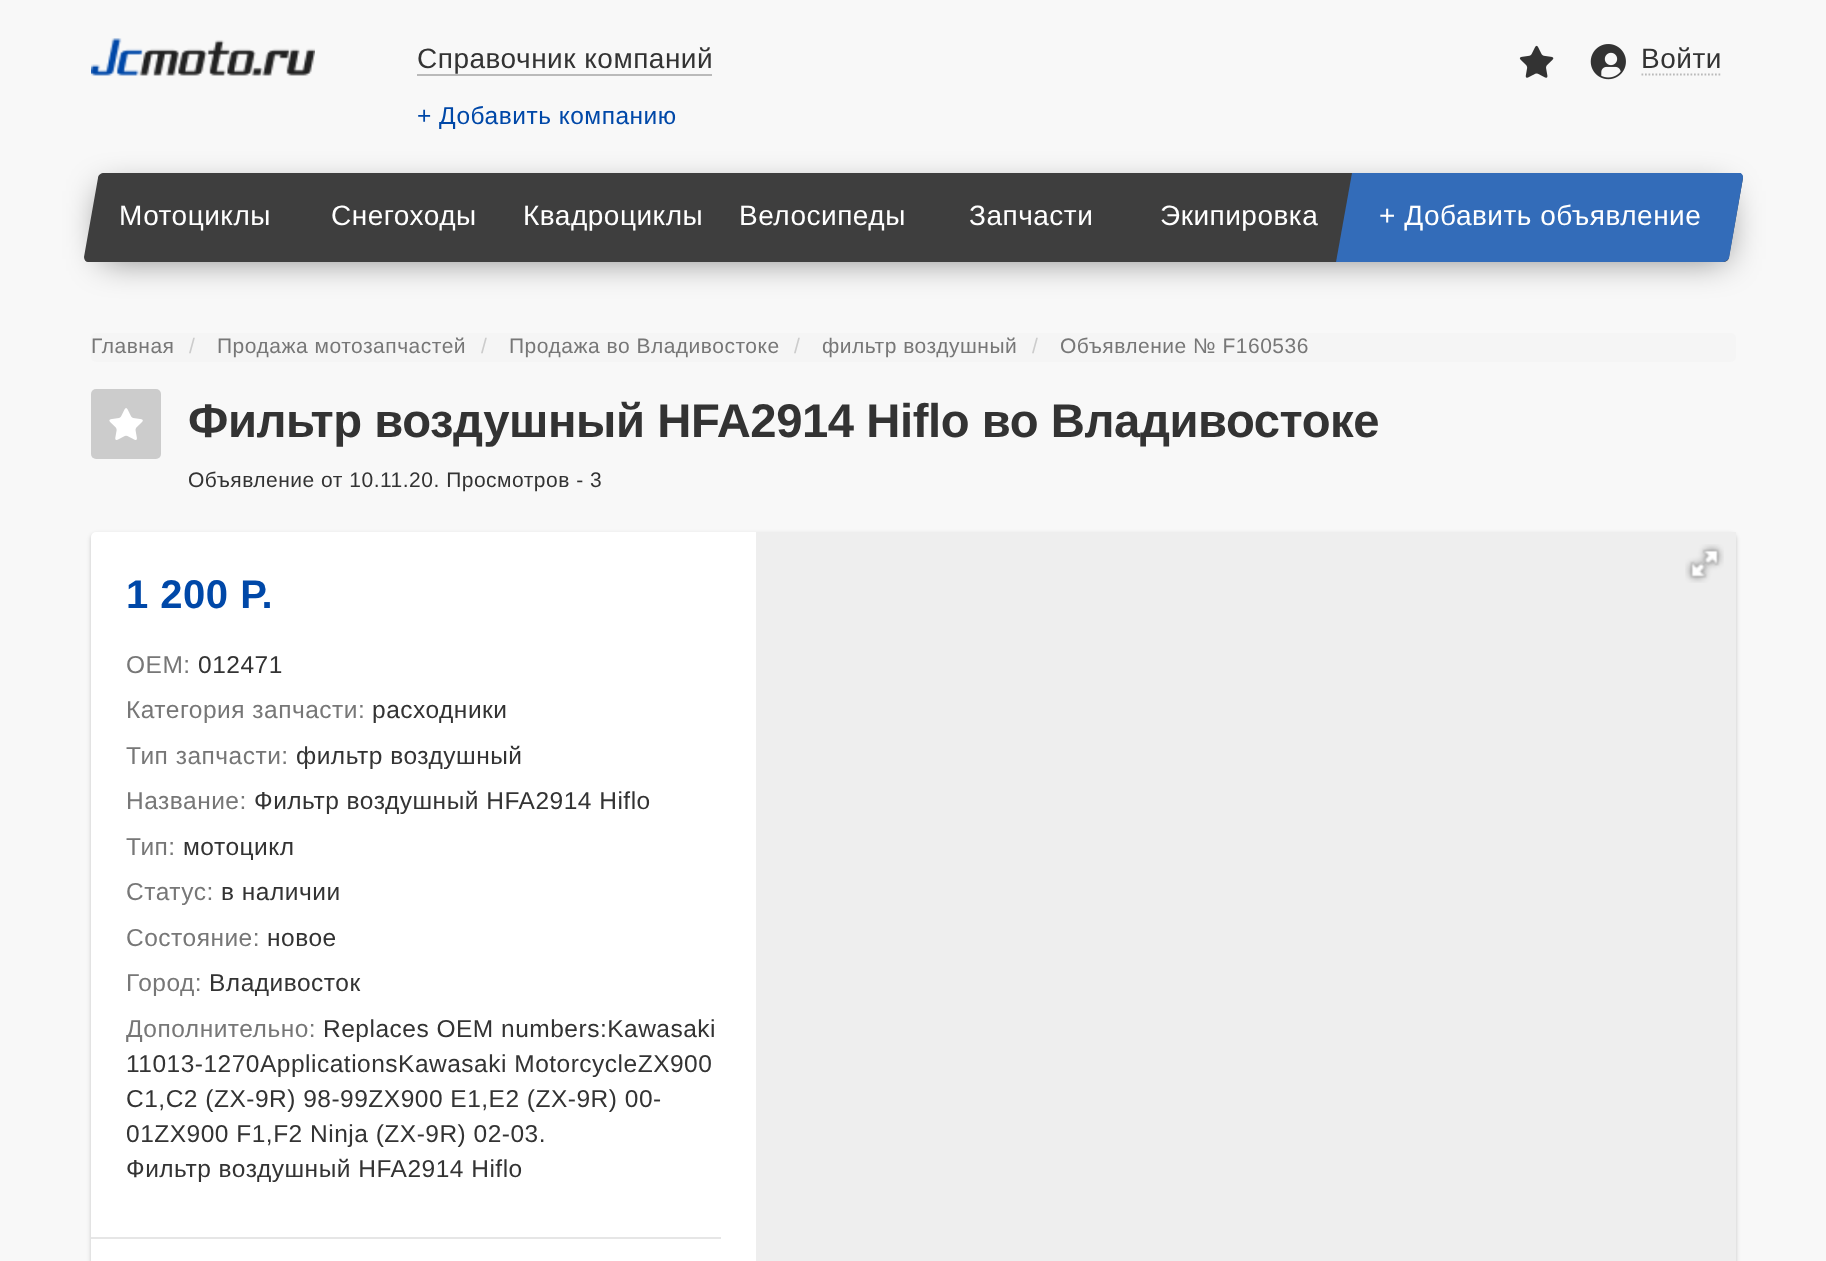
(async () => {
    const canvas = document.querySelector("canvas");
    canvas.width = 1826;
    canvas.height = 1261;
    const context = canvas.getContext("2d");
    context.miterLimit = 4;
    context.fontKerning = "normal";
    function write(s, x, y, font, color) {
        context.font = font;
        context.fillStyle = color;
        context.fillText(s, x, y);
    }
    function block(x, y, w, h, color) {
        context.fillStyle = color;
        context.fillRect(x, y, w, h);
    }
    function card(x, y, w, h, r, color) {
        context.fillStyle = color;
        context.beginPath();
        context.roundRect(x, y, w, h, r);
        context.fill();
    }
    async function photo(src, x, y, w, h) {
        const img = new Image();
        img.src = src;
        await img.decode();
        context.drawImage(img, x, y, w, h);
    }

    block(0, 0, 1826, 1261, "rgb(248, 248, 248)");
    await photo("media/1.png", 91, 38, 224, 38);
    context.letterSpacing = "0.5px";
    write("Справочник компаний", 417, 68, "28px Liberation Sans", "rgb(51, 51, 51)");
    block(417, 74, 295, 2, "rgb(186, 186, 186)");
    write("+ Добавить компанию", 417, 124, "24.5px Liberation Sans", "rgb(0, 72, 168)");
    await photo("media/2.png", 1519, 45, 35, 33);
    await photo("media/3.png", 1590, 44, 36, 36);
    write("Войти", 1641, 68, "28px Liberation Sans", "rgb(51, 51, 51)");
    context.beginPath();
    context.moveTo(1641.5, 74.5);
    context.lineTo(1722, 74.5);
    context.strokeStyle = "rgb(186, 186, 186)";
    context.lineWidth = 1.8;
    context.setLineDash([1.75, 1.75]);
    context.stroke();
    context.fillStyle = "rgba(0, 0, 0, 0.5)";
    context.filter = "blur(17.5px)";
    context.beginPath();
    context.rect(102, 191, 1624, 68);
    context.fill();
    context.filter = "none";
    context.fillStyle = "rgb(62, 62, 62)";
    context.beginPath();
    context.moveTo(104, 173);
    context.lineTo(1739, 173);
    context.bezierCurveTo(1741, 173, 1743, 175, 1743, 178);
    context.lineTo(1729, 257);
    context.bezierCurveTo(1729, 260, 1726, 262, 1723, 262);
    context.lineTo(88, 262);
    context.bezierCurveTo(86, 262, 84, 260, 84, 257);
    context.lineTo(98, 178);
    context.bezierCurveTo(98, 175, 101, 173, 104, 173);
    context.closePath();
    context.fill();
    write("Мотоциклы", 119, 225, "28px Liberation Sans", "rgb(255, 255, 255)");
    write("Снегоходы", 331, 225, "28px Liberation Sans", "rgb(255, 255, 255)");
    write("Квадроциклы", 523, 225, "28px Liberation Sans", "rgb(255, 255, 255)");
    write("Велосипеды", 739, 225, "28px Liberation Sans", "rgb(255, 255, 255)");
    write("Запчасти", 969, 225, "28px Liberation Sans", "rgb(255, 255, 255)");
    write("Экипировка", 1160, 225, "28px Liberation Sans", "rgb(255, 255, 255)");
    context.fillStyle = "rgb(51, 108, 185)";
    context.beginPath();
    context.moveTo(1352, 173);
    context.lineTo(1739, 173);
    context.bezierCurveTo(1742, 173, 1743, 175, 1743, 178);
    context.lineTo(1729, 258);
    context.bezierCurveTo(1728, 260, 1725, 262, 1723, 262);
    context.lineTo(1336, 262);
    context.closePath();
    context.fill();
    write("+ Добавить объявление", 1379, 225, "28px Liberation Sans", "rgb(255, 255, 255)");
    card(91, 333, 1645, 29, 5, "rgb(245, 245, 245)");
    write("Главная", 91, 353, "21px Liberation Sans", "rgb(119, 119, 119)");
    write("/", 189, 353, "21px Liberation Sans", "rgb(204, 204, 204)");
    write("Продажа мотозапчастей", 217, 353, "21px Liberation Sans", "rgb(119, 119, 119)");
    write("/", 481, 353, "21px Liberation Sans", "rgb(204, 204, 204)");
    write("Продажа во Владивостоке", 509, 353, "21px Liberation Sans", "rgb(119, 119, 119)");
    write("/", 794, 353, "21px Liberation Sans", "rgb(204, 204, 204)");
    write("фильтр воздушный", 822, 353, "21px Liberation Sans", "rgb(119, 119, 119)");
    write("/", 1032, 353, "21px Liberation Sans", "rgb(204, 204, 204)");
    write("Объявление № F160536", 1060, 353, "21px Liberation Sans", "rgb(119, 119, 119)");
    card(91, 389, 70, 70, 5, "rgb(204, 204, 204)");
    await photo("media/4.png", 109, 408, 34, 32);
    context.letterSpacing = "-0.45px";
    write("Фильтр воздушный HFA2914 Hiflo во Владивостоке", 188, 437, "bold 47.25px Liberation Sans", "rgb(51, 51, 51)");
    context.letterSpacing = "0.5px";
    write("Объявление от 10.11.20. Просмотров - 3", 188, 487, "21px Liberation Sans", "rgb(51, 51, 51)");
    context.fillStyle = "rgba(0, 0, 0, 0.2)";
    context.filter = "blur(2px)";
    context.beginPath();
    context.roundRect(91, 534, 1645, 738, 5);
    context.fill();
    context.filter = "none";
    card(91, 532, 1645, 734, 5, "rgb(255, 255, 255)");
    write("1 200 Р.", 126, 608, "bold 40px Liberation Sans", "rgb(0, 72, 168)");
    write("OEM:", 126, 673, "24.5px Liberation Sans", "rgb(119, 119, 119)");
    write("012471", 198, 673, "24.5px Liberation Sans", "rgb(51, 51, 51)");
    write("Категория запчасти:", 126, 718, "24.5px Liberation Sans", "rgb(119, 119, 119)");
    write("расходники", 372, 718, "24.5px Liberation Sans", "rgb(51, 51, 51)");
    write("Тип запчасти:", 126, 764, "24.5px Liberation Sans", "rgb(119, 119, 119)");
    write("фильтр воздушный", 296, 764, "24.5px Liberation Sans", "rgb(51, 51, 51)");
    write("Название:", 126, 809, "24.5px Liberation Sans", "rgb(119, 119, 119)");
    write("Фильтр воздушный HFA2914 Hiflo", 254, 809, "24.5px Liberation Sans", "rgb(51, 51, 51)");
    write("Тип:", 126, 855, "24.5px Liberation Sans", "rgb(119, 119, 119)");
    write("мотоцикл", 183, 855, "24.5px Liberation Sans", "rgb(51, 51, 51)");
    write("Статус:", 126, 900, "24.5px Liberation Sans", "rgb(119, 119, 119)");
    write("в наличии", 221, 900, "24.5px Liberation Sans", "rgb(51, 51, 51)");
    write("Состояние:", 126, 946, "24.5px Liberation Sans", "rgb(119, 119, 119)");
    write("новое", 267, 946, "24.5px Liberation Sans", "rgb(51, 51, 51)");
    write("Город:", 126, 991, "24.5px Liberation Sans", "rgb(119, 119, 119)");
    write("Владивосток", 209, 991, "24.5px Liberation Sans", "rgb(51, 51, 51)");
    write("Дополнительно:", 126, 1037, "24.5px Liberation Sans", "rgb(119, 119, 119)");
    write("Replaces OEM numbers:Kawasaki", 323, 1037, "24.5px Liberation Sans", "rgb(51, 51, 51)");
    write("11013-1270ApplicationsKawasaki MotorcycleZX900", 126, 1072, "24.5px Liberation Sans", "rgb(51, 51, 51)");
    write("C1,C2 (ZX-9R) 98-99ZX900 E1,E2 (ZX-9R) 00-", 126, 1107, "24.5px Liberation Sans", "rgb(51, 51, 51)");
    write("01ZX900 F1,F2 Ninja (ZX-9R) 02-03.", 126, 1142, "24.5px Liberation Sans", "rgb(51, 51, 51)");
    write("Фильтр воздушный HFA2914 Hiflo", 126, 1177, "24.5px Liberation Sans", "rgb(51, 51, 51)");
    block(91, 1237, 630, 2, "rgb(230, 230, 230)");
    block(756, 532, 980, 729, "rgb(238, 238, 238)");
    await photo("media/5.png", 1685, 544, 39, 39);
})();
